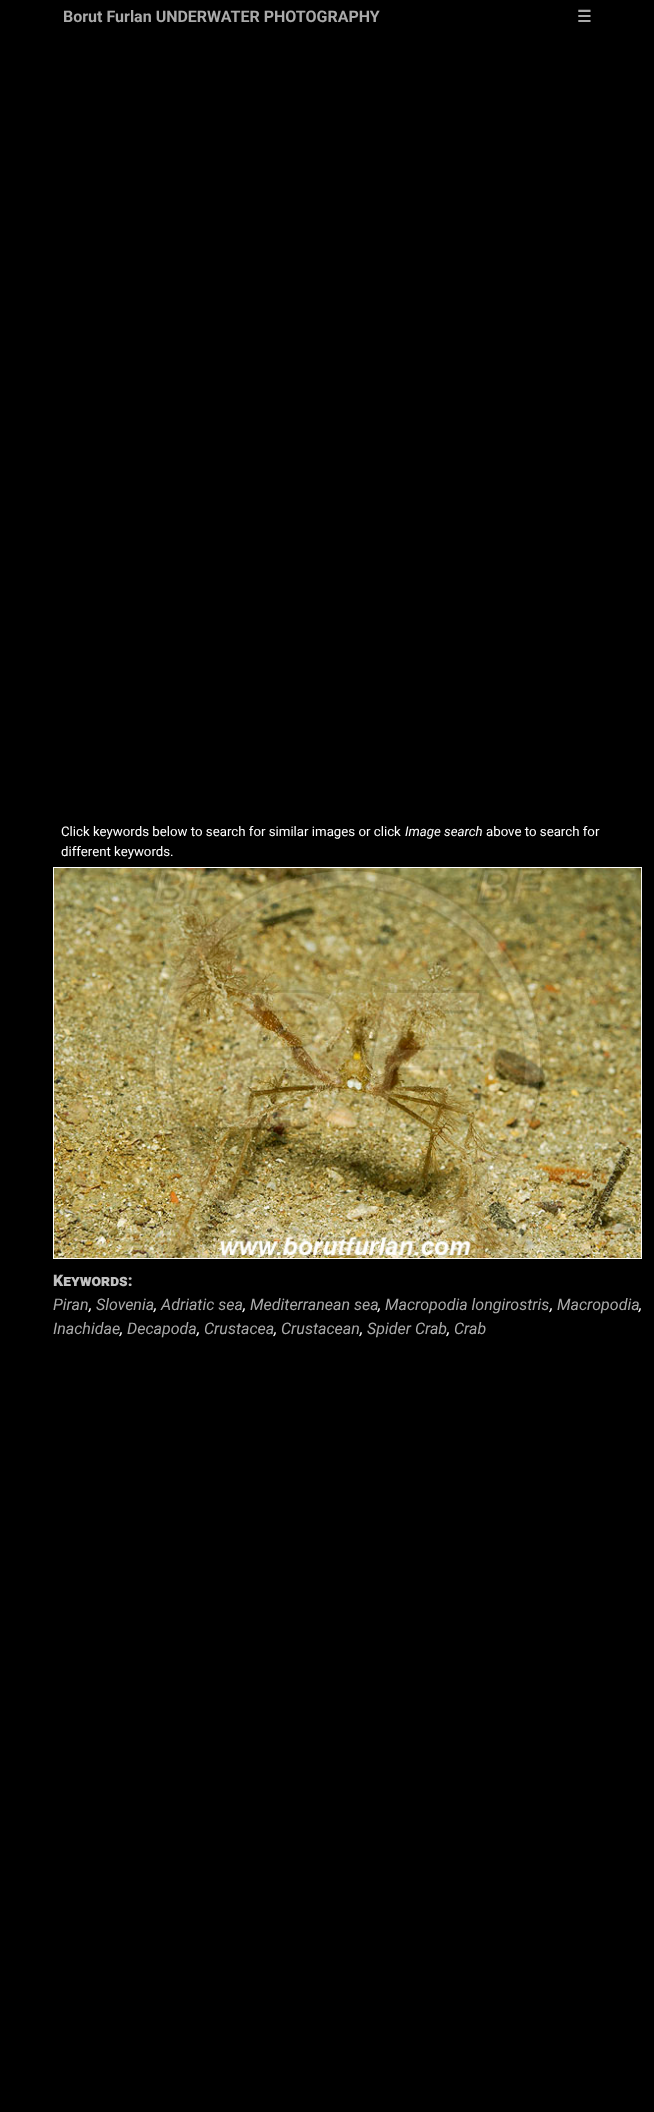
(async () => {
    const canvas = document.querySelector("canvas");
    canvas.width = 654;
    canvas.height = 2112;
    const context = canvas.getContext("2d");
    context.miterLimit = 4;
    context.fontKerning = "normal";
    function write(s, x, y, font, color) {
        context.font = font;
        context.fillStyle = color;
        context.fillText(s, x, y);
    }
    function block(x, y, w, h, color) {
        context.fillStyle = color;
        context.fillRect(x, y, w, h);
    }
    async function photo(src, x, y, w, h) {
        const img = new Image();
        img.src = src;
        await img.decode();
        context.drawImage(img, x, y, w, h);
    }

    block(0, 0, 654, 2112, "rgb(0, 0, 0)");
    write("Borut Furlan UNDERWATER PHOTOGRAPHY", 63, 22, "bold 16px Roboto", "rgb(170, 170, 170)");
    write("☰", 577, 22, "bold 16px DejaVu Sans", "rgb(170, 170, 170)");
    write("Click keywords below to search for similar images or click", 61, 836, "13.25px Roboto", "rgb(255, 255, 255)");
    write("Image search", 405, 836, "italic 13.25px Roboto", "rgb(255, 255, 255)");
    write("above to search for", 486, 836, "13.25px Roboto", "rgb(255, 255, 255)");
    write("different keywords.", 61, 856, "13.25px Roboto", "rgb(255, 255, 255)");
    await photo("media/1.png", 53, 867, 589, 392);
    write("Keywords:", 53, 1286, "900 16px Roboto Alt", "rgb(192, 192, 192)");
    write("Piran", 53, 1310, "italic 16px Roboto", "rgb(170, 170, 170)");
    write(",", 89, 1310, "italic 16px Roboto", "rgb(255, 255, 255)");
    write("Slovenia", 96, 1310, "italic 16px Roboto", "rgb(170, 170, 170)");
    write(",", 154, 1310, "italic 16px Roboto", "rgb(255, 255, 255)");
    write("Adriatic sea", 161, 1310, "italic 16px Roboto", "rgb(170, 170, 170)");
    write(",", 243, 1310, "italic 16px Roboto", "rgb(255, 255, 255)");
    write("Mediterranean sea", 250, 1310, "italic 16px Roboto", "rgb(170, 170, 170)");
    write(",", 378, 1310, "italic 16px Roboto", "rgb(255, 255, 255)");
    write("Macropodia longirostris", 385, 1310, "italic 16px Roboto", "rgb(170, 170, 170)");
    write(",", 550, 1310, "italic 16px Roboto", "rgb(255, 255, 255)");
    write("Macropodia", 557, 1310, "italic 16px Roboto", "rgb(170, 170, 170)");
    write(",", 639, 1310, "italic 16px Roboto", "rgb(255, 255, 255)");
    write("Inachidae", 53, 1334, "italic 16px Roboto", "rgb(170, 170, 170)");
    write(",", 120, 1334, "italic 16px Roboto", "rgb(255, 255, 255)");
    write("Decapoda", 127, 1334, "italic 16px Roboto", "rgb(170, 170, 170)");
    write(",", 197, 1334, "italic 16px Roboto", "rgb(255, 255, 255)");
    write("Crustacea", 204, 1334, "italic 16px Roboto", "rgb(170, 170, 170)");
    write(",", 274, 1334, "italic 16px Roboto", "rgb(255, 255, 255)");
    write("Crustacean", 281, 1334, "italic 16px Roboto", "rgb(170, 170, 170)");
    write(",", 360, 1334, "italic 16px Roboto", "rgb(255, 255, 255)");
    write("Spider Crab", 367, 1334, "italic 16px Roboto", "rgb(170, 170, 170)");
    write(",", 447, 1334, "italic 16px Roboto", "rgb(255, 255, 255)");
    write("Crab", 454, 1334, "italic 16px Roboto", "rgb(170, 170, 170)");
})();
